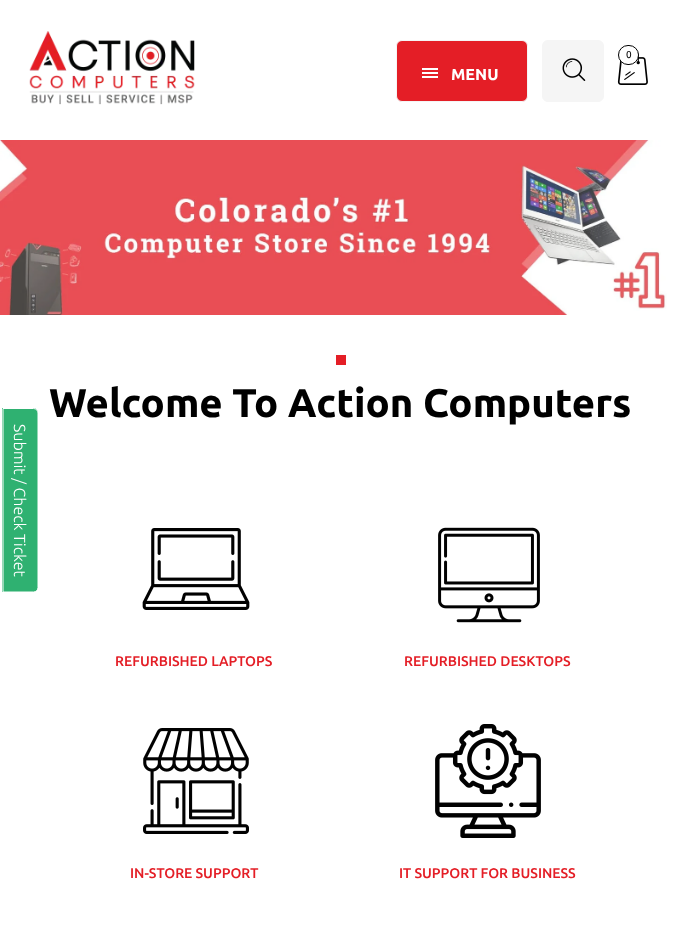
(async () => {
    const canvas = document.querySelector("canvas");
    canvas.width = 681;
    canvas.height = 933;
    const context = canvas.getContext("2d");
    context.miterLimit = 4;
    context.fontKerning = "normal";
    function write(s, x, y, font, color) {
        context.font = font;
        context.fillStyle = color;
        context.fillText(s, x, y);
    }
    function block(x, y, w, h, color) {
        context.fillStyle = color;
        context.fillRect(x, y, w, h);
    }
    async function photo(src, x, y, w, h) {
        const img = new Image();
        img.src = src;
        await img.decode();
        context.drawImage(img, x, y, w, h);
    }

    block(0, 0, 681, 933, "rgb(255, 255, 255)");
    context.fillStyle = "rgb(47, 177, 113)";
    context.beginPath();
    context.moveTo(38, 413);
    context.lineTo(38, 587);
    context.bezierCurveTo(38, 590, 36, 592, 33, 592);
    context.lineTo(2, 592);
    context.lineTo(2, 408);
    context.lineTo(33, 408);
    context.bezierCurveTo(36, 408, 38, 410, 38, 413);
    context.closePath();
    context.fill();
    context.beginPath();
    context.moveTo(38, 413);
    context.lineTo(38, 587.5);
    context.bezierCurveTo(38, 590, 36, 592, 33.5, 592);
    context.lineTo(3, 592);
    context.lineTo(3, 408.5);
    context.lineTo(33.5, 408.5);
    context.bezierCurveTo(36, 408.5, 38, 410.5, 38, 413);
    context.closePath();
    context.strokeStyle = "rgb(255, 255, 255)";
    context.stroke();
    context.font = "300 16px Ubuntu";
    context.fillStyle = "rgb(255, 255, 255)";
    context.save();
    context.translate(14, 424);
    context.rotate(90 * Math.PI / 180);
    context.fillText("Submit / Check Ticket", 0, 0);
    context.restore();
    await photo("media/1.png", 29, 31, 166, 74);
    context.fillStyle = "rgb(245, 245, 245)";
    context.beginPath();
    context.roundRect(542.5, 40.5, 61, 61, 5.5);
    context.fill();
    context.strokeStyle = "rgb(245, 245, 245)";
    context.stroke();
    await photo("media/2.png", 562, 58, 24, 23);
    await photo("media/3.png", 617, 51, 31, 34);
    context.fillStyle = "rgb(255, 255, 255)";
    context.beginPath();
    context.roundRect(618.5, 45.5, 20, 19, 9.5);
    context.fill();
    context.strokeStyle = "rgb(0, 0, 0)";
    context.stroke();
    write("0", 626, 58, "10px Ubuntu", "rgb(0, 0, 0)");
    context.fillStyle = "rgb(228, 30, 38)";
    context.beginPath();
    context.roundRect(396.5, 40.5, 131, 61, 5.5);
    context.fill();
    context.strokeStyle = "rgb(245, 245, 245)";
    context.stroke();
    await photo("media/4.png", 422, 68, 16, 10);
    write("MENU", 451, 80, "bold 16px Ubuntu", "rgb(255, 255, 255)");
    await photo("media/5.png", 0, 140, 667, 175);
    block(336, 355, 10, 10, "rgb(228, 30, 38)");
    write("Welcome To Action Computers", 49, 417, "bold 40px Ubuntu", "rgb(0, 0, 0)");
    await photo("media/6.png", 142, 528, 108, 82);
    write("REFURBISHED LAPTOPS", 115, 666, "500 14px Ubuntu", "rgb(228, 30, 38)");
    await photo("media/7.png", 438, 527, 102, 96);
    write("REFURBISHED DESKTOPS", 404, 666, "500 14px Ubuntu", "rgb(228, 30, 38)");
    await photo("media/8.png", 143, 728, 106, 106);
    write("IN-STORE SUPPORT", 130, 878, "500 14px Ubuntu", "rgb(228, 30, 38)");
    await photo("media/9.png", 435, 724, 106, 114);
    write("IT SUPPORT FOR BUSINESS", 399, 878, "500 14px Ubuntu", "rgb(228, 30, 38)");
})();
